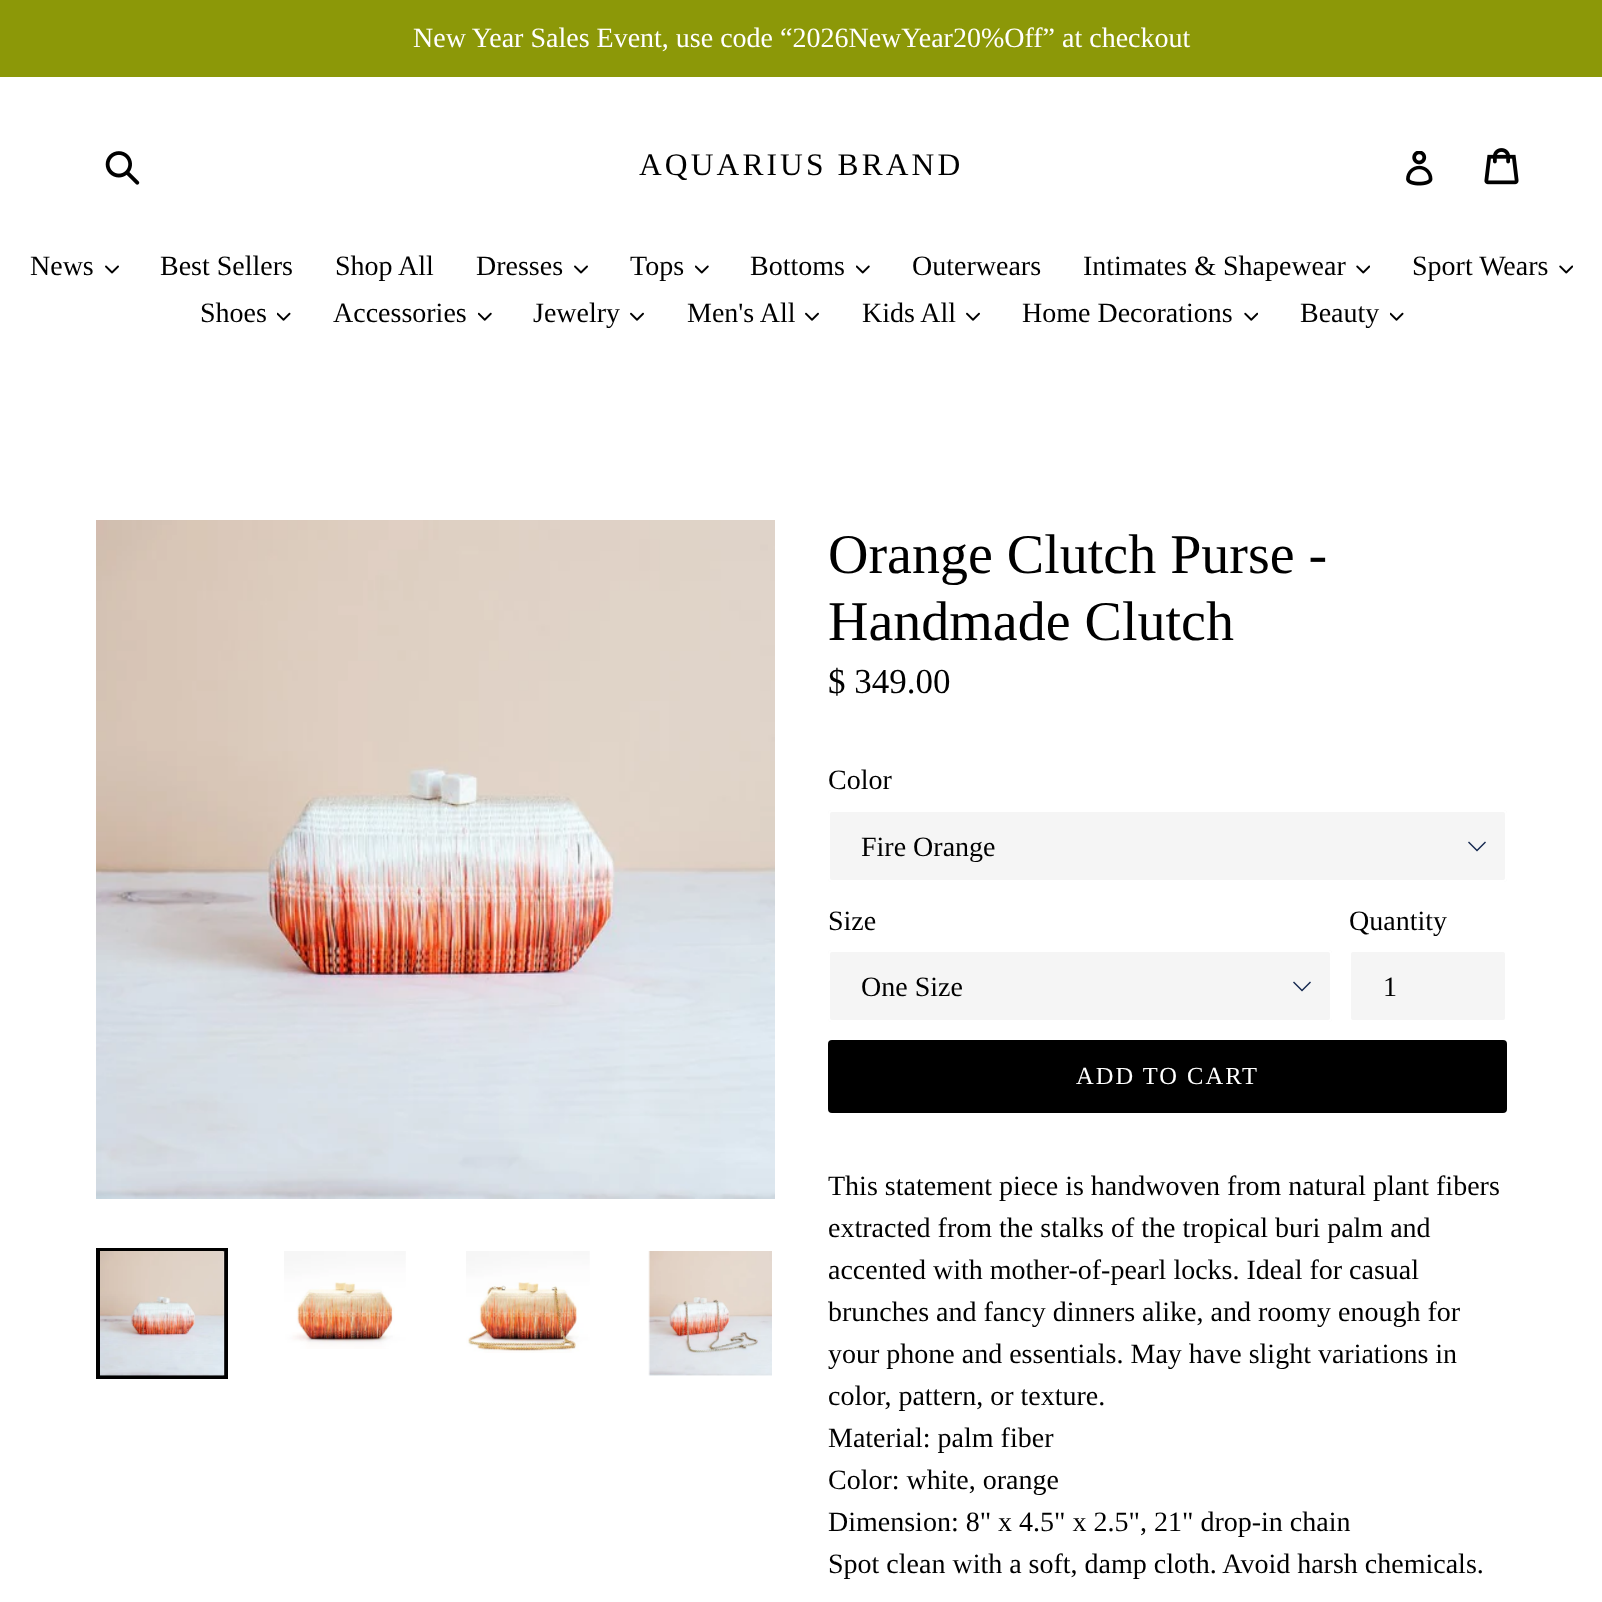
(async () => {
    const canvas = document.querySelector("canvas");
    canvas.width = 1602;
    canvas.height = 1602;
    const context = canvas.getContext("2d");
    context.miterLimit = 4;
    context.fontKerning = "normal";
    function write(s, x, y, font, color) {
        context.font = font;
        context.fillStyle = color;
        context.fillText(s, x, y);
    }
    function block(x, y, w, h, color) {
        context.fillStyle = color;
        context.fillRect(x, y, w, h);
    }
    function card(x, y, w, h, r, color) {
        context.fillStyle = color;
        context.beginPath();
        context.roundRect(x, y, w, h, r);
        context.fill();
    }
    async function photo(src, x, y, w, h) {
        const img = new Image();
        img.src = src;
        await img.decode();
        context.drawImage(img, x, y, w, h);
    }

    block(0, 0, 1602, 1602, "rgb(255, 255, 255)");
    block(0, 0, 1602, 77, "rgb(140, 152, 8)");
    write("New Year Sales Event, use code “2026NewYear20%Off” at checkout", 413, 47, "28px Liberation Serif", "rgb(255, 255, 255)");
    await photo("media/1.png", 105, 151, 35, 34);
    context.letterSpacing = "3.1px";
    write("AQUARIUS BRAND", 639, 175, "31.5px Liberation Serif", "rgb(0, 0, 0)");
    await photo("media/2.png", 1406, 151, 27, 35);
    await photo("media/3.png", 1484, 148, 35, 37);
    context.letterSpacing = "0px";
    write("News", 30, 275, "28px Liberation Serif", "rgb(0, 0, 0)");
    await photo("media/4.png", 105, 265, 14, 9);
    write("Best Sellers", 160, 275, "28px Liberation Serif", "rgb(0, 0, 0)");
    write("Shop All", 335, 275, "28px Liberation Serif", "rgb(0, 0, 0)");
    write("Dresses", 476, 275, "28px Liberation Serif", "rgb(0, 0, 0)");
    await photo("media/4.png", 574, 265, 14, 9);
    write("Tops", 630, 275, "28px Liberation Serif", "rgb(0, 0, 0)");
    await photo("media/5.png", 695, 265, 14, 9);
    write("Bottoms", 750, 275, "28px Liberation Serif", "rgb(0, 0, 0)");
    await photo("media/5.png", 856, 265, 14, 9);
    write("Outerwears", 912, 275, "28px Liberation Serif", "rgb(0, 0, 0)");
    write("Intimates & Shapewear", 1083, 275, "28px Liberation Serif", "rgb(0, 0, 0)");
    await photo("media/6.png", 1356, 265, 14, 9);
    write("Sport Wears", 1412, 275, "28px Liberation Serif", "rgb(0, 0, 0)");
    await photo("media/6.png", 1559, 265, 14, 9);
    write("Shoes", 200, 322, "28px Liberation Serif", "rgb(0, 0, 0)");
    await photo("media/7.png", 277, 312, 14, 9);
    write("Accessories", 333, 322, "28px Liberation Serif", "rgb(0, 0, 0)");
    await photo("media/8.png", 478, 312, 14, 9);
    write("Jewelry", 533, 322, "28px Liberation Serif", "rgb(0, 0, 0)");
    await photo("media/9.png", 630, 312, 14, 9);
    write("Men's All", 687, 322, "28px Liberation Serif", "rgb(0, 0, 0)");
    await photo("media/9.png", 805, 312, 14, 9);
    write("Kids All", 862, 322, "28px Liberation Serif", "rgb(0, 0, 0)");
    await photo("media/9.png", 966, 312, 14, 9);
    write("Home Decorations", 1022, 322, "28px Liberation Serif", "rgb(0, 0, 0)");
    await photo("media/10.png", 1244, 312, 14, 9);
    write("Beauty", 1300, 322, "28px Liberation Serif", "rgb(0, 0, 0)");
    await photo("media/7.png", 1390, 312, 14, 9);
    await photo("media/11.png", 96, 520, 679, 679);
    context.strokeStyle = "rgb(0, 0, 0)";
    context.lineWidth = 4;
    context.strokeRect(98, 1250, 128, 127);
    await photo("media/12.png", 100, 1251, 125, 125);
    await photo("media/13.png", 284, 1251, 122, 98);
    await photo("media/14.png", 466, 1251, 124, 102);
    await photo("media/15.png", 648, 1251, 124, 125);
    write("Orange Clutch Purse -", 828, 573, "56px Liberation Serif", "rgb(0, 0, 0)");
    write("Handmade Clutch", 828, 640, "56px Liberation Serif", "rgb(0, 0, 0)");
    write("$ 349.00", 828, 693, "35px Liberation Serif", "rgb(0, 0, 0)");
    write("Color", 828, 789, "28px Liberation Serif", "rgb(0, 0, 0)");
    card(828, 810, 679, 72, 4, "rgb(245, 245, 245)");
    context.fillStyle = "rgb(22, 41, 80)";
    context.beginPath();
    context.moveTo(1477, 851.5);
    context.lineTo(1468, 842.5);
    context.lineTo(1469, 841.5);
    context.lineTo(1477, 849.5);
    context.lineTo(1485, 841.5);
    context.lineTo(1486, 842.5);
    context.closePath();
    context.fill();
    context.beginPath();
    context.roundRect(829, 811, 677, 70, 3);
    context.strokeStyle = "rgb(255, 255, 255)";
    context.lineWidth = 2;
    context.stroke();
    write("Fire Orange", 861, 856, "28px Liberation Serif", "rgb(0, 0, 0)");
    write("Size", 828, 930, "28px Liberation Serif", "rgb(0, 0, 0)");
    card(828, 950, 504, 72, 4, "rgb(245, 245, 245)");
    context.fillStyle = "rgb(22, 41, 80)";
    context.beginPath();
    context.moveTo(1302, 991.5);
    context.lineTo(1293, 982.5);
    context.lineTo(1294, 981.5);
    context.lineTo(1302, 989.5);
    context.lineTo(1310, 981.5);
    context.lineTo(1311, 982.5);
    context.closePath();
    context.fill();
    context.beginPath();
    context.roundRect(829, 951, 502, 70, 3);
    context.stroke();
    write("One Size", 861, 996, "28px Liberation Serif", "rgb(0, 0, 0)");
    write("Quantity", 1349, 930, "28px Liberation Serif", "rgb(0, 0, 0)");
    context.fillStyle = "rgb(245, 245, 245)";
    context.beginPath();
    context.roundRect(1350, 951, 156, 70, 3);
    context.fill();
    context.stroke();
    write("1", 1383, 996, "28px Liberation Serif", "rgb(0, 0, 0)");
    card(828, 1040, 679, 73, 4, "rgb(0, 0, 0)");
    context.letterSpacing = "2px";
    write("ADD TO CART", 1076, 1084, "24.5px Liberation Serif", "rgb(255, 255, 255)");
    context.letterSpacing = "0px";
    write("This statement piece is handwoven from natural plant fibers", 828, 1195, "28px Liberation Serif", "rgb(0, 0, 0)");
    write("extracted from the stalks of the tropical buri palm and", 828, 1237, "28px Liberation Serif", "rgb(0, 0, 0)");
    write("accented with mother-of-pearl locks. Ideal for casual", 828, 1279, "28px Liberation Serif", "rgb(0, 0, 0)");
    write("brunches and fancy dinners alike, and roomy enough for", 828, 1321, "28px Liberation Serif", "rgb(0, 0, 0)");
    write("your phone and essentials. May have slight variations in", 828, 1363, "28px Liberation Serif", "rgb(0, 0, 0)");
    write("color, pattern, or texture.", 828, 1405, "28px Liberation Serif", "rgb(0, 0, 0)");
    write("Material: palm fiber", 828, 1447, "28px Liberation Serif", "rgb(0, 0, 0)");
    write("Color: white, orange", 828, 1489, "28px Liberation Serif", "rgb(0, 0, 0)");
    write("Dimension: 8\" x 4.5\" x 2.5\", 21\" drop-in chain", 828, 1531, "28px Liberation Serif", "rgb(0, 0, 0)");
    write("Spot clean with a soft, damp cloth. Avoid harsh chemicals.", 828, 1573, "28px Liberation Serif", "rgb(0, 0, 0)");
})();
